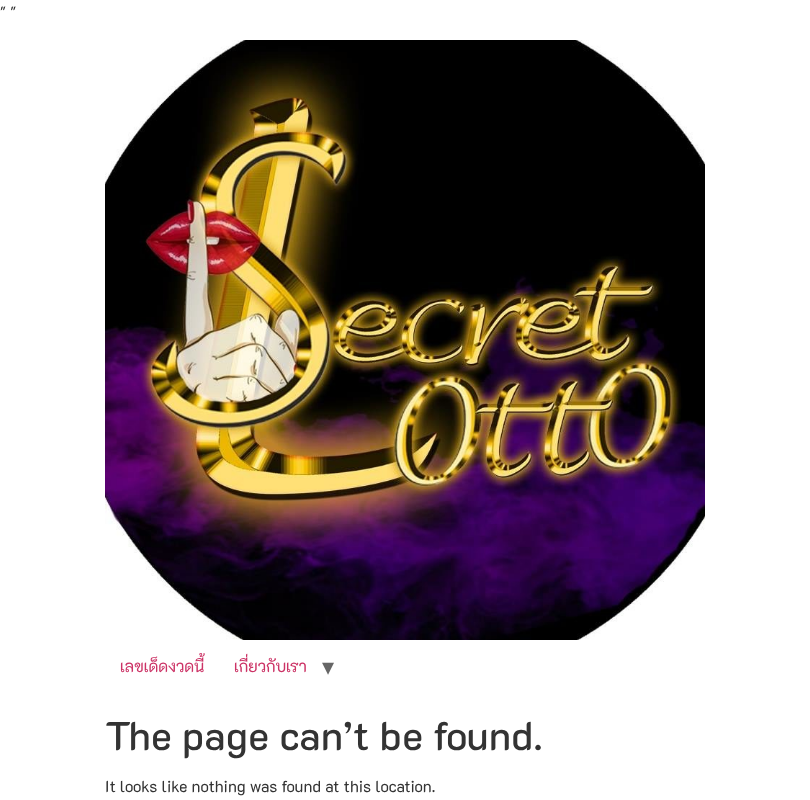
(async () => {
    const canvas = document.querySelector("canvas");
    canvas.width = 810;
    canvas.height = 800;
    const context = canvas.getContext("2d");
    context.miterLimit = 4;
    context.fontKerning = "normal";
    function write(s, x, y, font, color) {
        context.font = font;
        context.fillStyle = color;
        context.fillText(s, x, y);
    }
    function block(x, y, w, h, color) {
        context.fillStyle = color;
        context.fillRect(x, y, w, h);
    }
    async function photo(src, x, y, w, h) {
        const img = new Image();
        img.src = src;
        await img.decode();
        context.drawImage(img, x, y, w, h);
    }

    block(0, 0, 810, 800, "rgb(255, 255, 255)");
    write("\" \"", 0, 18, "16px 'K2D'", "rgb(51, 51, 51)");
    await photo("media/1.png", 105, 40, 600, 600);
    write("เลขเด็ดงวดนี้", 120, 672, "16px 'K2D'", "rgb(204, 51, 102)");
    write("เกี่ยวกับเรา", 234, 672, "16px 'K2D'", "rgb(204, 51, 102)");
    write("▾", 322, 675, "24px DejaVu Sans", "rgb(102, 102, 102)");
    write("The page can’t be found.", 105, 750, "500 40px 'K2D'", "rgb(51, 51, 51)");
    write("It looks like nothing was found at this location.", 105, 792, "16px 'K2D'", "rgb(51, 51, 51)");
})();
